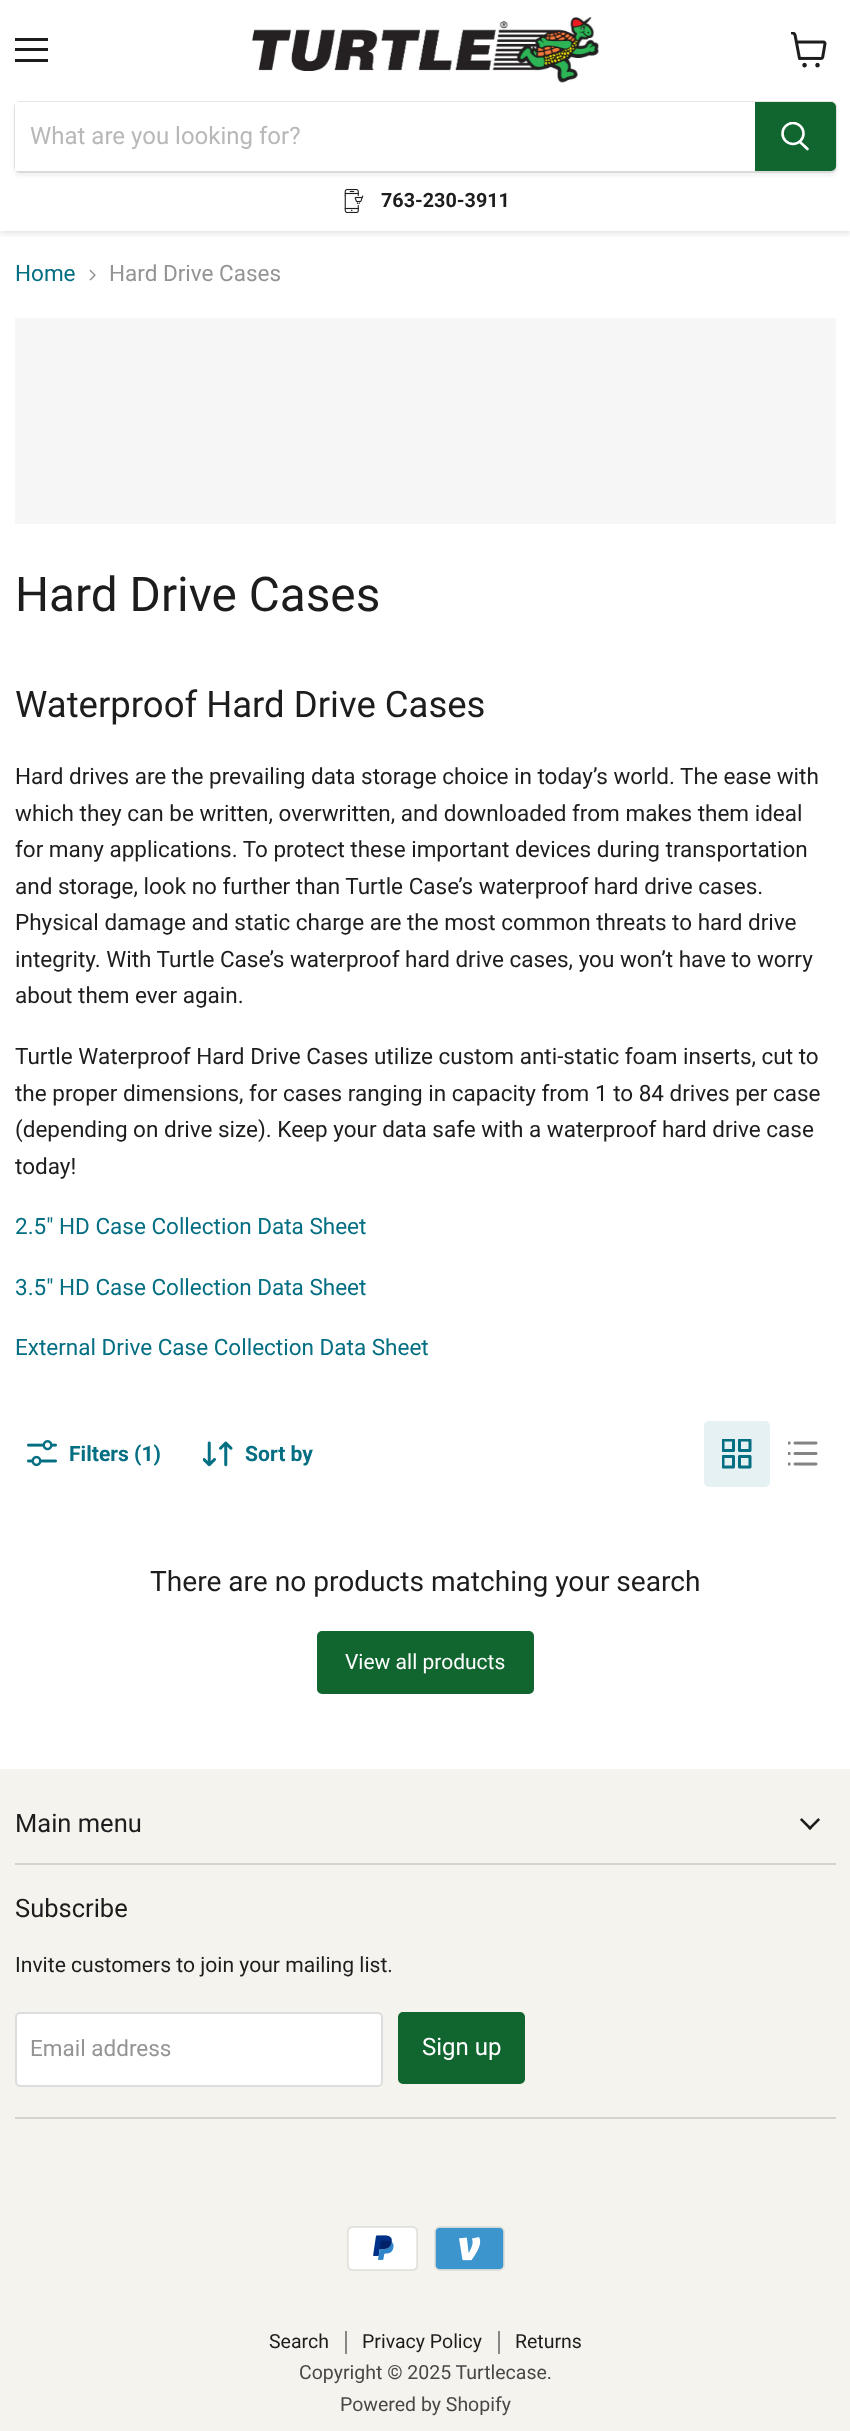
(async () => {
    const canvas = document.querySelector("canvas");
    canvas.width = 850;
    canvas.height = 2431;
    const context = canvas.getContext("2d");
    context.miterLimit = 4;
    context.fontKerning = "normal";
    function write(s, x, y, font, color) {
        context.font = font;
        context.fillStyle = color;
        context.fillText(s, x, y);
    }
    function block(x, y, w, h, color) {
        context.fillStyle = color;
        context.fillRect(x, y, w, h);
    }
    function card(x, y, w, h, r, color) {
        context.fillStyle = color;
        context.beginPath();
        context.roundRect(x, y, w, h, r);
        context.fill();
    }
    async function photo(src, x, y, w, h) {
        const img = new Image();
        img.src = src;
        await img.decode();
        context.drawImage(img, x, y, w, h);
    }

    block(0, 0, 850, 2431, "rgb(255, 255, 255)");
    context.save();
    context.beginPath();
    context.rect(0, 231, 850, 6);
    context.clip();
    context.fillStyle = "rgba(128, 128, 128, 0.25)";
    context.filter = "blur(3px)";
    context.beginPath();
    context.rect(0, 2, 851, 231);
    context.fill();
    context.filter = "none";
    context.restore();
    block(15, 38, 33, 3, "rgb(29, 29, 29)");
    block(15, 48, 33, 3, "rgb(29, 29, 29)");
    block(15, 59, 33, 3, "rgb(29, 29, 29)");
    await photo("media/1.png", 791, 32, 36, 36);
    await photo("media/2.png", 252, 17, 347, 66);
    context.fillStyle = "rgba(128, 128, 128, 0.11)";
    context.filter = "blur(2px)";
    context.beginPath();
    context.roundRect(14, 104, 823, 72, 6);
    context.fill();
    context.filter = "none";
    context.beginPath();
    context.roundRect(15, 102, 821, 70, 5);
    context.strokeStyle = "rgba(128, 128, 128, 0.2)";
    context.lineWidth = 2;
    context.stroke();
    block(15, 102, 740, 69, "rgb(255, 255, 255)");
    write("What are you looking for?", 30, 144, "24px Roboto", "rgb(184, 184, 184)");
    context.fillStyle = "rgb(17, 102, 48)";
    context.beginPath();
    context.roundRect(756, 103, 79, 67, [0, 4, 4, 0]);
    context.fill();
    context.strokeStyle = "rgb(17, 102, 48)";
    context.stroke();
    context.beginPath();
    context.moveTo(807.5, 149);
    context.lineTo(800, 142);
    context.strokeStyle = "rgb(255, 255, 255)";
    context.lineWidth = 2.6;
    context.lineCap = "round";
    context.stroke();
    context.save();
    context.beginPath();
    context.rect(780, 122, 30, 31);
    context.clip();
    context.beginPath();
    context.arc(793, 133.5, 10.5, 0, Math.PI * 2);
    context.stroke();
    context.restore();
    await photo("media/3.png", 344, 189, 20, 24);
    write("763-230-3911", 381, 207, "bold 19.75px Roboto", "rgb(29, 29, 29)");
    write("Home", 15, 281, "22.5px Roboto", "rgb(4, 110, 130)");
    await photo("media/4.png", 89, 269, 7, 12);
    write("Hard Drive Cases", 109, 281, "22.5px Roboto", "rgb(148, 148, 148)");
    block(15, 318, 821, 206, "rgb(246, 246, 246)");
    write("Hard Drive Cases", 15, 611, "47.75px Roboto", "rgb(29, 29, 29)");
    write("Waterproof Hard Drive Cases", 15, 717, "36.5px Roboto", "rgb(29, 29, 29)");
    write("Hard drives are the prevailing data storage choice in today’s world. The ease with", 15, 784, "22.5px Roboto", "rgb(29, 29, 29)");
    write("which they can be written, overwritten, and downloaded from makes them ideal", 15, 821, "22.5px Roboto", "rgb(29, 29, 29)");
    write("for many applications. To protect these important devices during transportation", 15, 857, "22.5px Roboto", "rgb(29, 29, 29)");
    write("and storage, look no further than Turtle Case’s waterproof hard drive cases.", 15, 894, "22.5px Roboto", "rgb(29, 29, 29)");
    write("Physical damage and static charge are the most common threats to hard drive", 15, 930, "22.5px Roboto", "rgb(29, 29, 29)");
    write("integrity. With Turtle Case’s waterproof hard drive cases, you won’t have to worry", 15, 967, "22.5px Roboto", "rgb(29, 29, 29)");
    write("about them ever again.", 15, 1003, "22.5px Roboto", "rgb(29, 29, 29)");
    write("Turtle Waterproof Hard Drive Cases utilize custom anti-static foam inserts, cut to", 15, 1064, "22.5px Roboto", "rgb(29, 29, 29)");
    write("the proper dimensions, for cases ranging in capacity from 1 to 84 drives per case", 15, 1101, "22.5px Roboto", "rgb(29, 29, 29)");
    write("(depending on drive size). Keep your data safe with a waterproof hard drive case", 15, 1137, "22.5px Roboto", "rgb(29, 29, 29)");
    write("today!", 15, 1174, "22.5px Roboto", "rgb(29, 29, 29)");
    write("2.5\" HD Case Collection Data Sheet", 15, 1234, "22.5px Roboto", "rgb(4, 110, 130)");
    write("3.5\" HD Case Collection Data Sheet", 15, 1295, "22.5px Roboto", "rgb(4, 110, 130)");
    write("External Drive Case Collection Data Sheet", 15, 1355, "22.5px Roboto", "rgb(4, 110, 130)");
    await photo("media/5.png", 27, 1440, 30, 27);
    write("Filters (1)", 69, 1461, "bold 21.1px Roboto", "rgb(4, 110, 130)");
    await photo("media/6.png", 203, 1441, 30, 26);
    write("Sort by", 245, 1461, "bold 21.1px Roboto", "rgb(4, 110, 130)");
    card(704, 1421, 66, 66, 5, "rgb(230, 241, 243)");
    await photo("media/7.png", 722, 1439, 30, 30);
    await photo("media/8.png", 788, 1441, 30, 25);
    write("There are no products matching your search", 150, 1591, "28.1px Roboto", "rgb(29, 29, 29)");
    context.fillStyle = "rgb(17, 102, 48)";
    context.beginPath();
    context.roundRect(318, 1632, 215, 61, 4);
    context.fill();
    context.strokeStyle = "rgb(17, 102, 48)";
    context.lineWidth = 2;
    context.stroke();
    write("View all products", 345, 1669, "21px Roboto", "rgb(255, 255, 255)");
    block(0, 1769, 850, 662, "rgb(245, 243, 237)");
    block(15, 1863, 821, 2, "rgb(213, 211, 206)");
    write("Main menu", 15, 1832, "25.5px Roboto", "rgb(29, 29, 29)");
    await photo("media/9.png", 800, 1818, 20, 12);
    block(15, 2117, 821, 2, "rgb(213, 211, 206)");
    write("Subscribe", 15, 1917, "25.5px Roboto", "rgb(29, 29, 29)");
    write("Invite customers to join your mailing list.", 15, 1972, "21.1px Roboto", "rgb(29, 29, 29)");
    context.fillStyle = "rgb(255, 255, 255)";
    context.beginPath();
    context.roundRect(16, 2013, 366, 73, 4);
    context.fill();
    context.strokeStyle = "rgb(221, 221, 221)";
    context.stroke();
    write("Email address", 30, 2056, "22.5px Roboto", "rgb(148, 148, 148)");
    context.fillStyle = "rgb(17, 102, 48)";
    context.beginPath();
    context.roundRect(399, 2013, 125, 70, 4);
    context.fill();
    context.strokeStyle = "rgb(17, 102, 48)";
    context.stroke();
    write("Sign up", 422, 2055, "24px Roboto", "rgb(255, 255, 255)");
    await photo("media/10.png", 347, 2226, 71, 45);
    await photo("media/11.png", 434, 2226, 71, 45);
    block(345, 2331, 2, 23, "rgb(137, 136, 133)");
    write("Search", 269, 2348, "19.5px Roboto", "rgb(29, 29, 29)");
    block(498, 2331, 2, 23, "rgb(137, 136, 133)");
    write("Privacy Policy", 362, 2348, "19.5px Roboto", "rgb(29, 29, 29)");
    write("Returns", 515, 2348, "19.5px Roboto", "rgb(29, 29, 29)");
    write("Copyright © 2025 Turtlecase.", 299, 2379, "19.5px Roboto", "rgb(72, 72, 71)");
    write("Powered by Shopify", 340, 2411, "19.5px Roboto", "rgb(72, 72, 71)");
})();
